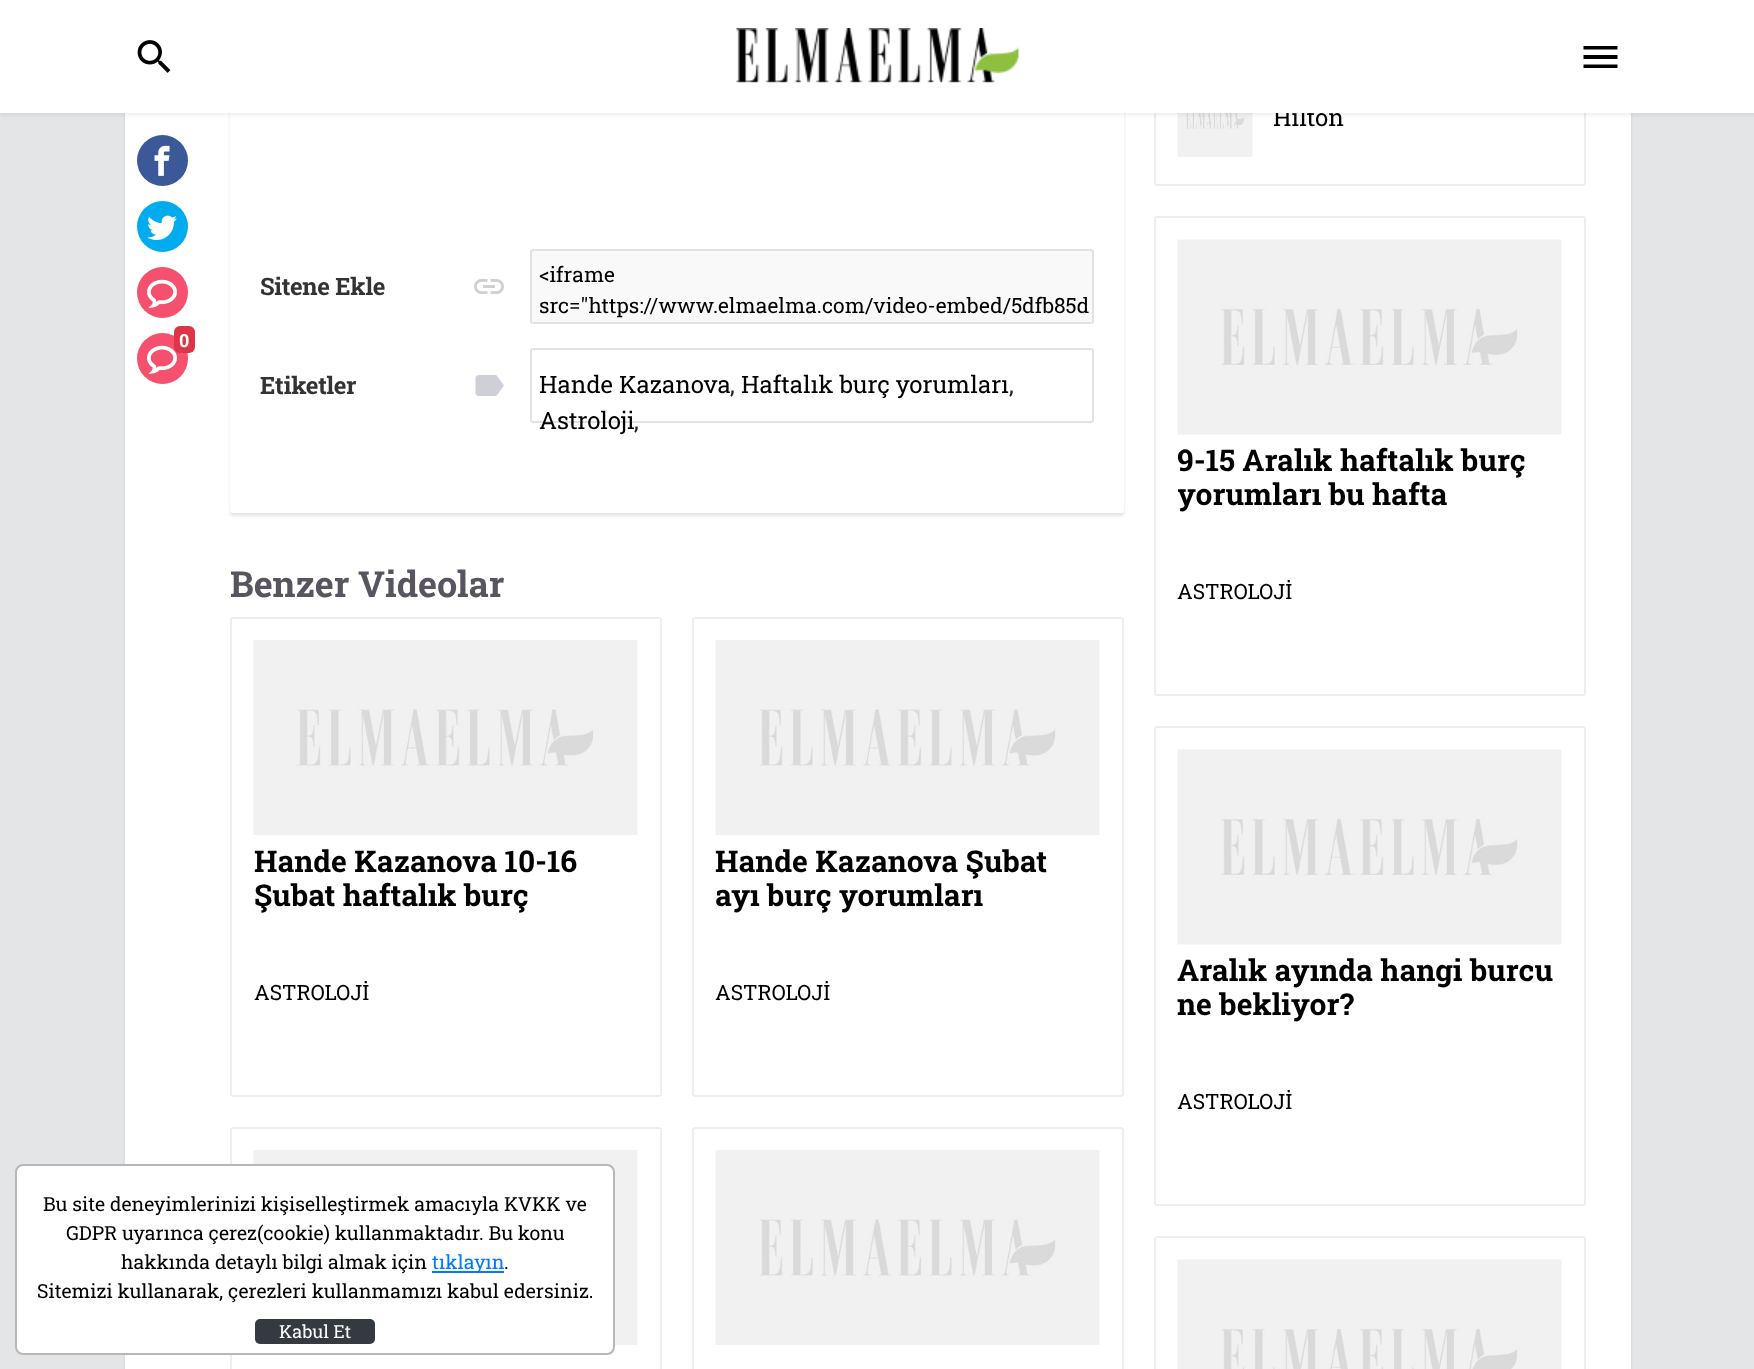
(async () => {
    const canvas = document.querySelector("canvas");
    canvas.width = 1754;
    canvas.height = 1369;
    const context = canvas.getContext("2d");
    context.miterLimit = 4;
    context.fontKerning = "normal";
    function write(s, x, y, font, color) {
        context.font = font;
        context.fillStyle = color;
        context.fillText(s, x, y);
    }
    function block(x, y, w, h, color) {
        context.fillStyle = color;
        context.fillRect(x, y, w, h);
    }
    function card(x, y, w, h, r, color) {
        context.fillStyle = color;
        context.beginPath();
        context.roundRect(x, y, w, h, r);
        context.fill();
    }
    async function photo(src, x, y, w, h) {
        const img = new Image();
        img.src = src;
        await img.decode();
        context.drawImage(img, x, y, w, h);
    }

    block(0, 0, 1754, 1369, "rgb(228, 229, 231)");
    context.fillStyle = "rgba(0, 0, 0, 0.1)";
    context.filter = "blur(1.5px)";
    context.beginPath();
    context.roundRect(125, -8, 1506, 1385, 3);
    context.fill();
    context.filter = "none";
    block(125, 113, 1506, 1256, "rgb(255, 255, 255)");
    context.fillStyle = "rgba(0, 0, 0, 0.1)";
    context.filter = "blur(1.5px)";
    context.beginPath();
    context.roundRect(230, -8, 894, 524, 3);
    context.fill();
    context.filter = "none";
    card(230, -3, 894, 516, 3, "rgb(255, 255, 255)");
    context.beginPath();
    context.roundRect(1155, -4, 430, 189, 2);
    context.strokeStyle = "rgb(238, 238, 238)";
    context.lineWidth = 2;
    context.stroke();
    await photo("media/9.png", 1177, 113, 76, 44);
    context.fillStyle = "rgba(0, 0, 0, 0.05)";
    context.filter = "blur(1.5px)";
    context.beginPath();
    context.rect(0, 3, 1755, 113);
    context.fill();
    context.filter = "none";
    write("Hilton", 1273, 126, "24px Roboto Slab", "rgb(0, 0, 0)");
    block(0, 0, 1754, 113, "rgb(255, 255, 255)");
    await photo("media/1.png", 137, 40, 34, 33);
    await photo("media/2.png", 736, 28, 283, 55);
    context.fillStyle = "rgb(0, 0, 0)";
    context.beginPath();
    context.moveTo(1583.5, 46);
    context.lineTo(1617.5, 46);
    context.lineTo(1617.5, 49.5);
    context.lineTo(1583.5, 49.5);
    context.closePath();
    context.moveTo(1583.5, 59);
    context.lineTo(1583.5, 55);
    context.lineTo(1617.5, 55);
    context.lineTo(1617.5, 59);
    context.closePath();
    context.moveTo(1583.5, 68);
    context.lineTo(1583.5, 64.5);
    context.lineTo(1617.5, 64.5);
    context.lineTo(1617.5, 68);
    context.closePath();
    context.fill();
    context.fillStyle = "rgb(59, 89, 152)";
    context.beginPath();
    context.arc(162.5, 160.5, 25.5, 0, Math.PI * 2);
    context.fill();
    await photo("media/3.png", 154, 145, 16, 31);
    context.fillStyle = "rgb(0, 172, 237)";
    context.beginPath();
    context.arc(162.5, 226.5, 25.5, 0, Math.PI * 2);
    context.fill();
    await photo("media/4.png", 147, 215, 30, 25);
    context.fillStyle = "rgb(245, 80, 109)";
    context.beginPath();
    context.arc(162.5, 292.5, 25.5, 0, Math.PI * 2);
    context.fill();
    await photo("media/5.png", 147, 279, 30, 29);
    context.beginPath();
    context.arc(162.5, 358.5, 25.5, 0, Math.PI * 2);
    context.fill();
    await photo("media/5.png", 147, 345, 30, 29);
    card(174, 326, 21, 27, 6, "rgb(220, 53, 69)");
    write("0", 179, 347, "bold 18px Roboto Slab", "rgb(255, 255, 255)");
    context.letterSpacing = "-0.25px";
    write("Sitene Ekle", 260, 295, "bold 24px Roboto Slab", "rgb(51, 51, 51)");
    await photo("media/6.png", 474, 279, 30, 15);
    context.fillStyle = "rgb(249, 249, 249)";
    context.beginPath();
    context.roundRect(531, 250, 562, 73, 2);
    context.fill();
    context.strokeStyle = "rgb(224, 227, 230)";
    context.stroke();
    context.letterSpacing = "0px";
    write("<iframe", 539, 282, "21px Roboto Slab", "rgb(0, 0, 0)");
    write("src=\"https://www.elmaelma.com/video-embed/5dfb85d", 539, 313, "21px Roboto Slab", "rgb(0, 0, 0)");
    context.letterSpacing = "-0.25px";
    write("Etiketler", 260, 394, "bold 24px Roboto Slab", "rgb(51, 51, 51)");
    await photo("media/7.png", 475, 375, 29, 21);
    context.beginPath();
    context.roundRect(531, 349, 562, 73, 2);
    context.stroke();
    context.letterSpacing = "0px";
    write("Hande Kazanova", 539, 393, "24px Roboto Slab", "rgb(0, 0, 0)");
    write(",", 730, 393, "24px Roboto Slab", "rgb(33, 37, 41)");
    write("Haftalık burç yorumları", 741, 393, "24px Roboto Slab", "rgb(0, 0, 0)");
    write(",", 1009, 393, "24px Roboto Slab", "rgb(33, 37, 41)");
    write("Astroloji", 539, 429, "24px Roboto Slab", "rgb(0, 0, 0)");
    write(",", 634, 429, "24px Roboto Slab", "rgb(33, 37, 41)");
    write("Benzer Videolar", 230, 597, "bold 36px Roboto Slab", "rgb(89, 85, 96)");
    context.beginPath();
    context.roundRect(231, 618, 430, 478, 2);
    context.strokeStyle = "rgb(238, 238, 238)";
    context.stroke();
    await photo("media/8.png", 253, 640, 385, 195);
    write("Hande Kazanova 10-16", 254, 872, "bold 30px Roboto Slab", "rgb(0, 0, 0)");
    write("Şubat haftalık burç", 254, 906, "bold 30px Roboto Slab", "rgb(0, 0, 0)");
    write("ASTROLOJİ", 254, 1000, "21px Roboto Slab", "rgb(0, 0, 0)");
    context.beginPath();
    context.roundRect(693, 618, 430, 478, 2);
    context.stroke();
    await photo("media/8.png", 715, 640, 385, 195);
    write("Hande Kazanova Şubat", 715, 872, "bold 30px Roboto Slab", "rgb(0, 0, 0)");
    write("ayı burç yorumları", 715, 906, "bold 30px Roboto Slab", "rgb(0, 0, 0)");
    write("ASTROLOJİ", 715, 1000, "21px Roboto Slab", "rgb(0, 0, 0)");
    context.beginPath();
    context.roundRect(231, 1128, 430, 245, 2);
    context.stroke();
    await photo("media/8.png", 253, 1150, 385, 195);
    context.beginPath();
    context.roundRect(693, 1128, 430, 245, 2);
    context.stroke();
    await photo("media/8.png", 715, 1150, 385, 195);
    context.beginPath();
    context.roundRect(1155, 217, 430, 478, 2);
    context.stroke();
    await photo("media/10.png", 1177, 239, 385, 196);
    write("9-15 Aralık haftalık burç", 1177, 471, "bold 30px Roboto Slab", "rgb(0, 0, 0)");
    context.save();
    context.beginPath();
    context.rect(1178, 443, 384, 75);
    context.clip();
    write("yorumları bu hafta", 1177, 505, "bold 30px Roboto Slab", "rgb(0, 0, 0)");
    context.restore();
    write("ASTROLOJİ", 1177, 599, "21px Roboto Slab", "rgb(0, 0, 0)");
    context.beginPath();
    context.roundRect(1155, 727, 430, 478, 2);
    context.stroke();
    await photo("media/10.png", 1177, 749, 385, 196);
    write("Aralık ayında hangi burcu", 1177, 981, "bold 30px Roboto Slab", "rgb(0, 0, 0)");
    write("ne bekliyor?", 1177, 1015, "bold 30px Roboto Slab", "rgb(0, 0, 0)");
    write("ASTROLOJİ", 1177, 1109, "21px Roboto Slab", "rgb(0, 0, 0)");
    context.beginPath();
    context.roundRect(1155, 1237, 430, 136, 2);
    context.stroke();
    await photo("media/11.png", 1177, 1259, 385, 110);
    context.fillStyle = "rgb(255, 255, 255)";
    context.beginPath();
    context.roundRect(16, 1165, 598, 189, 7);
    context.fill();
    context.strokeStyle = "rgb(183, 183, 183)";
    context.stroke();
    write("Bu site deneyimlerinizi kişiselleştirmek amacıyla KVKK ve", 43, 1211, "19.5px Roboto Slab", "rgb(0, 0, 0)");
    write("GDPR uyarınca çerez(cookie) kullanmaktadır. Bu konu", 66, 1240, "19.5px Roboto Slab", "rgb(0, 0, 0)");
    write("hakkında detaylı bilgi almak için", 121, 1269, "19.5px Roboto Slab", "rgb(0, 0, 0)");
    block(432, 1271, 72, 2, "rgb(0, 123, 255)");
    write("tıklayın", 432, 1269, "19.5px Roboto Slab", "rgb(0, 123, 255)");
    write(".", 504, 1269, "19.5px Roboto Slab", "rgb(0, 0, 0)");
    write("Sitemizi kullanarak, çerezleri kullanmamızı kabul edersiniz.", 37, 1298, "19.5px Roboto Slab", "rgb(0, 0, 0)");
    card(255, 1319, 120, 25, 5, "rgb(52, 58, 64)");
    write("Kabul Et", 279, 1338, "18px Roboto Slab", "rgb(255, 255, 255)");
})();
